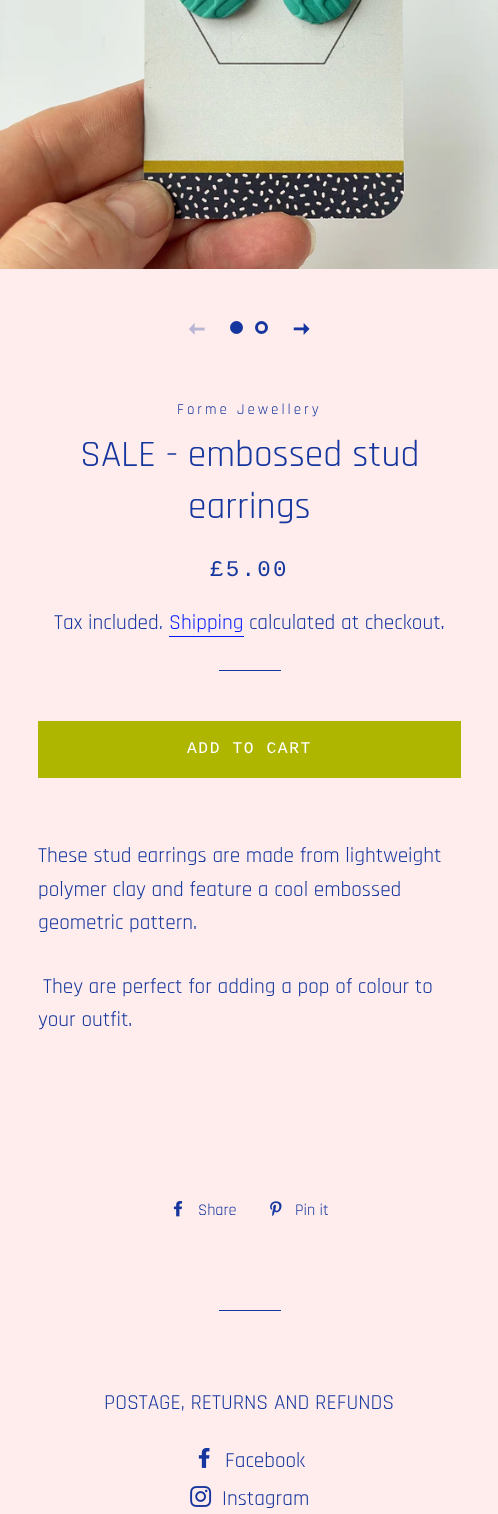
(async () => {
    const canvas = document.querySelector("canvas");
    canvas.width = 498;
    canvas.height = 1514;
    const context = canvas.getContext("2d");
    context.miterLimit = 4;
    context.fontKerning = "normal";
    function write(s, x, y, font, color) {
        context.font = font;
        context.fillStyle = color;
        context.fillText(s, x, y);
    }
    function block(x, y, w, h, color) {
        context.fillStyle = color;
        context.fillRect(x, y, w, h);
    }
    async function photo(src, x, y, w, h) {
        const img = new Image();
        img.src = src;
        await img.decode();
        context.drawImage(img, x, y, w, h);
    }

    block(0, 0, 498, 1514, "rgb(255, 236, 236)");
    await photo("media/1.png", 0, 0, 498, 269);
    await photo("media/2.png", 189, 323, 16, 12);
    context.fillStyle = "rgb(21, 54, 158)";
    context.beginPath();
    context.arc(236.5, 327.5, 5, 0, Math.PI * 2);
    context.fill();
    context.strokeStyle = "rgb(21, 54, 158)";
    context.lineWidth = 3;
    context.stroke();
    context.beginPath();
    context.arc(261.5, 327.5, 5, 0, Math.PI * 2);
    context.stroke();
    await photo("media/3.png", 293, 323, 17, 12);
    context.letterSpacing = "3px";
    write("Forme Jewellery", 177, 414, "15px Rajdhani", "rgb(21, 54, 158)");
    context.letterSpacing = "0px";
    write("SALE - embossed stud", 80, 466, "37.5px Rajdhani", "rgb(21, 54, 158)");
    write("earrings", 188, 518, "37.5px Rajdhani", "rgb(21, 54, 158)");
    context.letterSpacing = "2.25px";
    write("£5.00", 210, 576, "22.5px Liberation Mono", "rgb(21, 54, 158)");
    context.letterSpacing = "0px";
    write("Tax included.", 54, 629, "21.25px Rajdhani", "rgb(21, 54, 158)");
    write("Shipping", 169, 629, "21.25px Rajdhani", "rgb(0, 27, 255)");
    block(169, 636, 75, 1, "rgb(0, 27, 255)");
    write("calculated at checkout.", 249, 629, "21.25px Rajdhani", "rgb(21, 54, 158)");
    block(219, 670, 62, 1, "rgb(21, 54, 158)");
    block(38, 721, 423, 57, "rgb(175, 182, 0)");
    context.letterSpacing = "1.6px";
    write("ADD TO CART", 187, 753, "16.25px Liberation Mono", "rgb(255, 255, 255)");
    context.letterSpacing = "0px";
    write("These stud earrings are made from lightweight", 38, 862, "21.25px Rajdhani", "rgb(21, 54, 158)");
    write("polymer clay and feature a cool embossed", 38, 896, "21.25px Rajdhani", "rgb(21, 54, 158)");
    write("geometric pattern.", 38, 929, "21.25px Rajdhani", "rgb(21, 54, 158)");
    write("They are perfect for adding a pop of colour to", 43, 993, "21.25px Rajdhani", "rgb(21, 54, 158)");
    write("your outfit.", 38, 1026, "21.25px Rajdhani", "rgb(21, 54, 158)");
    await photo("media/4.png", 173, 1201, 10, 16);
    write("Share", 198, 1215, "16.25px Rajdhani", "rgb(21, 54, 158)");
    await photo("media/5.png", 270, 1201, 12, 16);
    write("Pin it", 295, 1215, "16.25px Rajdhani", "rgb(21, 54, 158)");
    block(219, 1310, 62, 1, "rgb(21, 54, 158)");
    write("POSTAGE, RETURNS AND REFUNDS", 104, 1409, "21.25px Rajdhani", "rgb(21, 54, 158)");
    await photo("media/6.png", 198, 1448, 12, 20);
    write("Facebook", 225, 1467, "21.25px Rajdhani", "rgb(21, 54, 158)");
    await photo("media/7.png", 190, 1486, 22, 21);
    write("Instagram", 222, 1505, "21.25px Rajdhani", "rgb(21, 54, 158)");
})();
